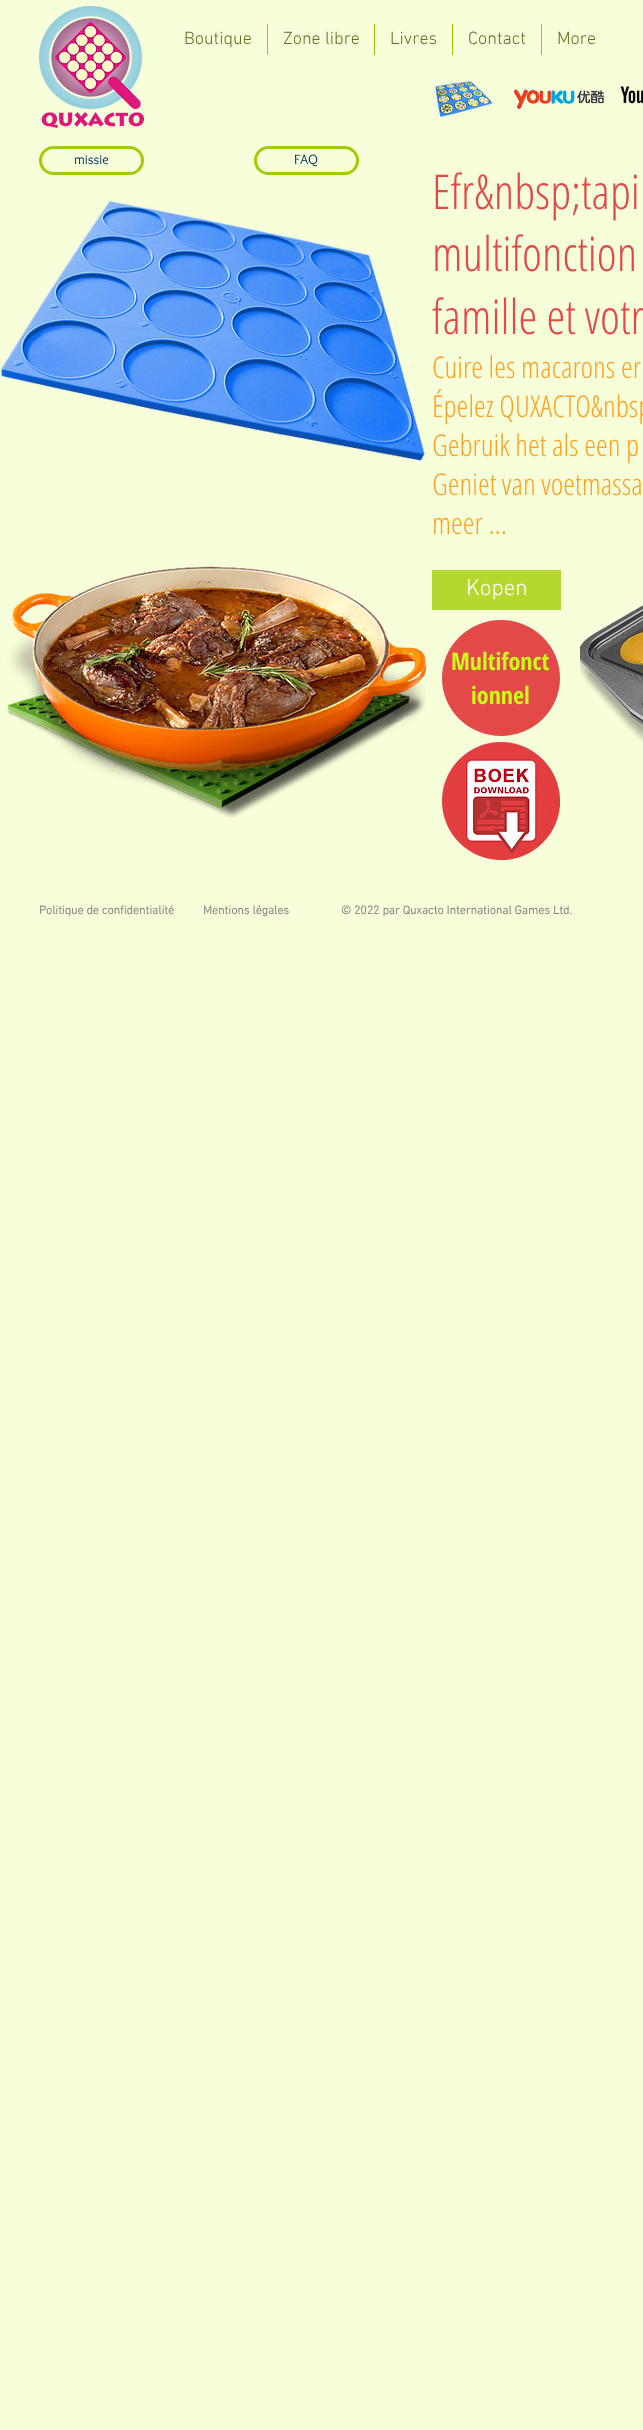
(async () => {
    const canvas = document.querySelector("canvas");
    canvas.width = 643;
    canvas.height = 2430;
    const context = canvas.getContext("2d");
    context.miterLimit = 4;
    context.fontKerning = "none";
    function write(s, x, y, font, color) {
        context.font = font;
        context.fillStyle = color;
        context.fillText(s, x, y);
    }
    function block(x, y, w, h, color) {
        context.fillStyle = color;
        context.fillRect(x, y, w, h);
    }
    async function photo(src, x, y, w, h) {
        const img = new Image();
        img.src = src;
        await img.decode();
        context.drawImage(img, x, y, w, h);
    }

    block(0, 0, 643, 2430, "rgb(247, 255, 218)");
    await photo("media/1.png", 39, 6, 105, 122);
    write("Boutique", 184, 44, "300 18px 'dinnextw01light'", "rgb(97, 114, 33)");
    block(267, 24, 1, 31, "rgb(162, 204, 1)");
    write("Zone libre", 283, 44, "300 18px 'dinnextw01light'", "rgb(97, 114, 33)");
    block(374, 24, 1, 31, "rgb(162, 204, 1)");
    write("Livres", 390, 44, "300 18px 'dinnextw01light'", "rgb(97, 114, 33)");
    block(452, 24, 1, 31, "rgb(162, 204, 1)");
    write("Contact", 468, 44, "300 18px 'dinnextw01light'", "rgb(97, 114, 33)");
    block(541, 24, 1, 31, "rgb(162, 204, 1)");
    write("More", 557, 44, "300 18px 'dinnextw01light'", "rgb(97, 114, 33)");
    await photo("media/2.png", 435, 81, 58, 36);
    await photo("media/3.png", 514, 89, 90, 20);
    await photo("media/4.png", 620, 86, 23, 18);
    context.beginPath();
    context.roundRect(40.5, 147.5, 102, 26, 13);
    context.strokeStyle = "rgb(162, 204, 1)";
    context.lineWidth = 3;
    context.stroke();
    write("missie", 74, 164, "14px Overlock", "rgb(0, 46, 93)");
    context.beginPath();
    context.roundRect(255.5, 147.5, 102, 26, 13);
    context.stroke();
    write("FAQ", 294, 164, "14px Overlock", "rgb(0, 46, 93)");
    await photo("media/5.png", 1, 201, 426, 260);
    write("Efr&nbsp;tapi", 432, 209, "300 48px Open Sans Condensed", "rgb(227, 73, 73)");
    write("multifonction", 432, 271, "300 48px Open Sans Condensed", "rgb(227, 73, 73)");
    write("famille et votr", 432, 334, "300 48px Open Sans Condensed", "rgb(227, 73, 73)");
    write("Cuire les macarons er", 432, 378, "300 30px Open Sans Condensed", "rgb(255, 159, 36)");
    write("Épelez QUXACTO&nbsp", 432, 417, "300 30px Open Sans Condensed", "rgb(255, 159, 36)");
    write("Gebruik het als een p", 432, 456, "300 30px Open Sans Condensed", "rgb(255, 159, 36)");
    write("Geniet van voetmassa", 432, 495, "300 30px Open Sans Condensed", "rgb(255, 159, 36)");
    write("meer ...", 432, 534, "300 30px Open Sans Condensed", "rgb(255, 159, 36)");
    await photo("media/6.png", 7, 566, 419, 252);
    block(432, 570, 129, 40, "rgb(181, 216, 49)");
    write("Kopen", 466, 595, "300 23px 'dinnextw01light'", "rgb(255, 255, 255)");
    context.fillStyle = "rgb(227, 73, 73)";
    context.beginPath();
    context.ellipse(501, 678, 59, 58, 0, 0, Math.PI * 2);
    context.fill();
    write("Multifonct", 451, 670, "bold 24px Open Sans Condensed", "rgb(203, 250, 23)");
    write("ionnel", 471, 704, "bold 24px Open Sans Condensed", "rgb(203, 250, 23)");
    await photo("media/7.png", 580, 605, 63, 138);
    await photo("media/8.png", 442, 742, 118, 118);
    write("Politique de confidentialité", 39, 914, "bold 12px 'dinnextw01light'", "rgb(136, 135, 133)");
    write("Mentions légales", 203, 914, "bold 12px 'dinnextw01light'", "rgb(136, 135, 133)");
    write("© 2022 par Quxacto International Games Ltd.", 341, 914, "bold 12px 'dinnextw01light'", "rgb(136, 135, 133)");
})();
